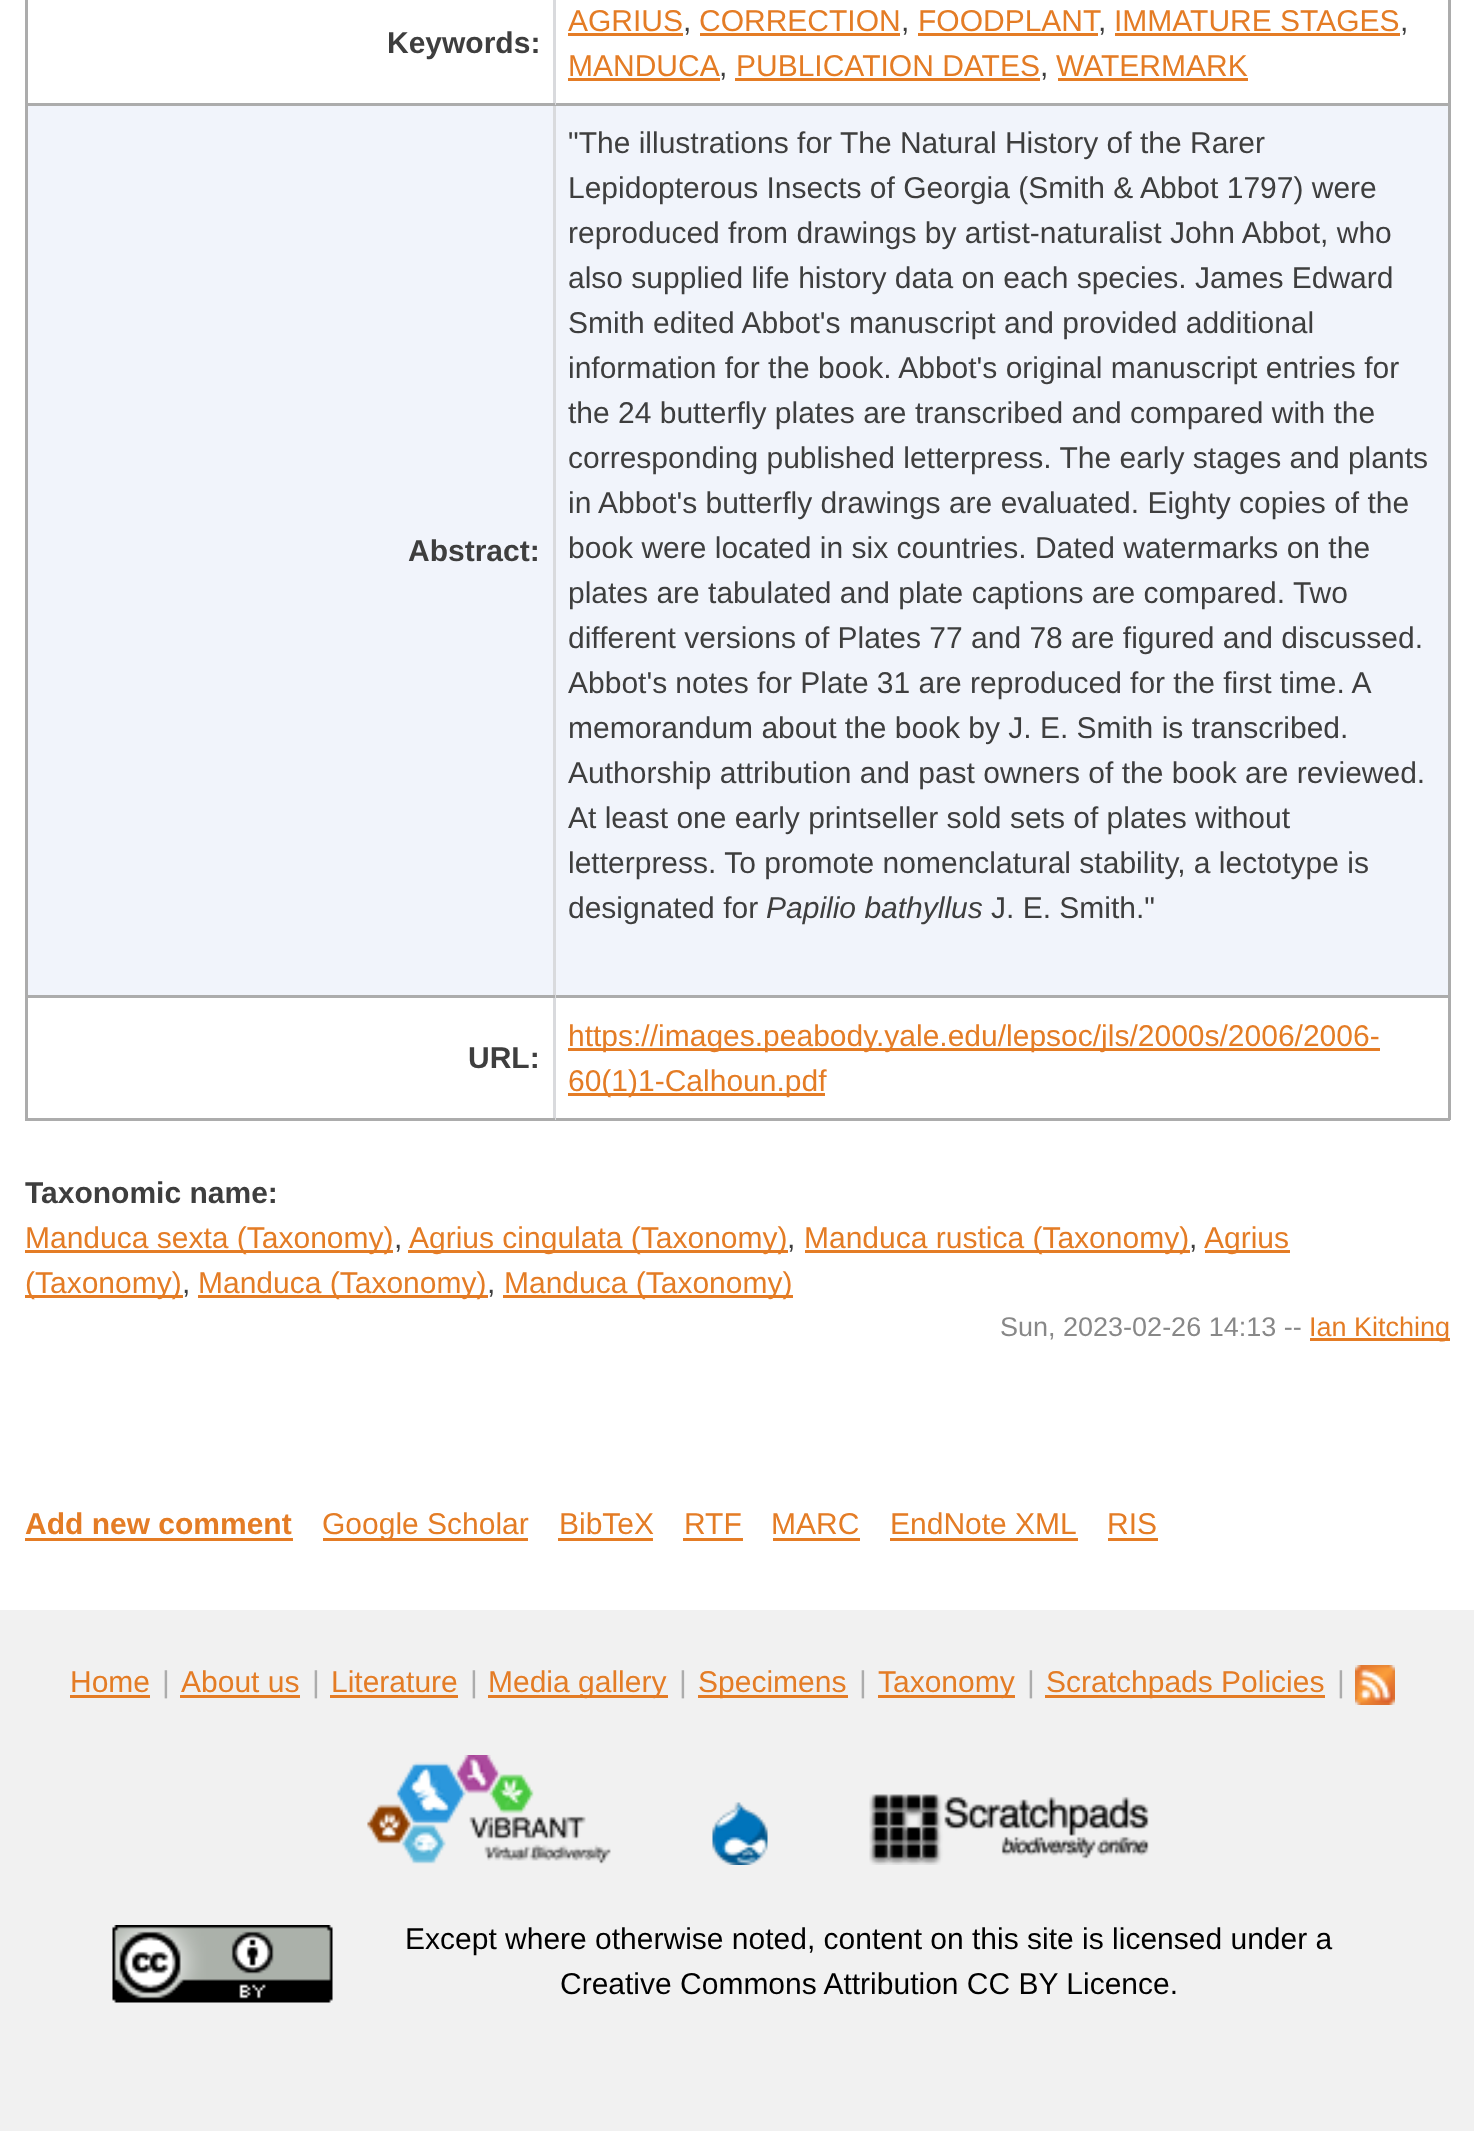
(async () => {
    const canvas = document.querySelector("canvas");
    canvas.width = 1474;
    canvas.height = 2131;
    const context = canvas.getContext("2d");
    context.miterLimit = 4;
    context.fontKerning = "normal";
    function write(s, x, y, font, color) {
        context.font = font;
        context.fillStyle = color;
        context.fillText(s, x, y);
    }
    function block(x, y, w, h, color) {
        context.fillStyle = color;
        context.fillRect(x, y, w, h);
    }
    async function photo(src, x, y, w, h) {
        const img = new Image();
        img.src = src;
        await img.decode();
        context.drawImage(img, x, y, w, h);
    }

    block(0, 0, 1474, 2131, "rgb(255, 255, 255)");
    block(28, 106, 1420, 889, "rgb(241, 244, 251)");
    block(1448, 0, 3, 1120, "rgb(172, 172, 172)");
    block(553, 1118, 897, 3, "rgb(172, 172, 172)");
    block(553, 995, 3, 125, "rgb(217, 218, 221)");
    block(553, 995, 897, 3, "rgb(172, 172, 172)");
    block(553, 103, 3, 895, "rgb(217, 218, 221)");
    block(553, 103, 897, 3, "rgb(172, 172, 172)");
    block(553, 0, 3, 105, "rgb(217, 218, 221)");
    block(25, 1118, 530, 3, "rgb(172, 172, 172)");
    block(25, 995, 3, 125, "rgb(172, 172, 172)");
    block(25, 995, 530, 3, "rgb(172, 172, 172)");
    block(25, 103, 3, 895, "rgb(172, 172, 172)");
    block(25, 103, 530, 3, "rgb(172, 172, 172)");
    block(25, 0, 3, 105, "rgb(172, 172, 172)");
    write("Keywords:", 387, 53, "bold 30px Liberation Sans", "rgb(62, 62, 62)");
    write("AGRIUS", 568, 31, "30px Liberation Sans", "rgb(228, 124, 37)");
    block(568, 33, 115, 3, "rgb(228, 124, 37)");
    write(",", 683, 31, "30px Liberation Sans", "rgb(62, 62, 62)");
    write("CORRECTION", 699, 31, "30px Liberation Sans", "rgb(228, 124, 37)");
    block(700, 33, 200, 3, "rgb(228, 124, 37)");
    write(",", 901, 31, "30px Liberation Sans", "rgb(62, 62, 62)");
    write("FOODPLANT", 918, 31, "30px Liberation Sans", "rgb(228, 124, 37)");
    block(918, 33, 180, 3, "rgb(228, 124, 37)");
    write(",", 1098, 31, "30px Liberation Sans", "rgb(62, 62, 62)");
    write("IMMATURE STAGES", 1114, 31, "30px Liberation Sans", "rgb(228, 124, 37)");
    block(1115, 33, 285, 3, "rgb(228, 124, 37)");
    write(",", 1400, 31, "30px Liberation Sans", "rgb(62, 62, 62)");
    write("MANDUCA", 568, 76, "30px Liberation Sans", "rgb(228, 124, 37)");
    block(568, 78, 152, 3, "rgb(228, 124, 37)");
    write(",", 719, 76, "30px Liberation Sans", "rgb(62, 62, 62)");
    write("PUBLICATION DATES", 736, 76, "30px Liberation Sans", "rgb(228, 124, 37)");
    block(735, 78, 305, 3, "rgb(228, 124, 37)");
    write(",", 1040, 76, "30px Liberation Sans", "rgb(62, 62, 62)");
    write("WATERMARK", 1056, 76, "30px Liberation Sans", "rgb(228, 124, 37)");
    block(1058, 78, 190, 3, "rgb(228, 124, 37)");
    write("Abstract:", 408, 561, "bold 30px Liberation Sans", "rgb(62, 62, 62)");
    write("\"The illustrations for The Natural History of the Rarer", 568, 153, "30px Liberation Sans", "rgb(62, 62, 62)");
    write("Lepidopterous Insects of Georgia (Smith & Abbot 1797) were", 568, 198, "30px Liberation Sans", "rgb(62, 62, 62)");
    write("reproduced from drawings by artist-naturalist John Abbot, who", 568, 243, "30px Liberation Sans", "rgb(62, 62, 62)");
    write("also supplied life history data on each species. James Edward", 568, 288, "30px Liberation Sans", "rgb(62, 62, 62)");
    write("Smith edited Abbot's manuscript and provided additional", 568, 333, "30px Liberation Sans", "rgb(62, 62, 62)");
    write("information for the book. Abbot's original manuscript entries for", 568, 378, "30px Liberation Sans", "rgb(62, 62, 62)");
    write("the 24 butterfly plates are transcribed and compared with the", 568, 423, "30px Liberation Sans", "rgb(62, 62, 62)");
    write("corresponding published letterpress. The early stages and plants", 568, 468, "30px Liberation Sans", "rgb(62, 62, 62)");
    write("in Abbot's butterfly drawings are evaluated. Eighty copies of the", 568, 513, "30px Liberation Sans", "rgb(62, 62, 62)");
    write("book were located in six countries. Dated watermarks on the", 568, 558, "30px Liberation Sans", "rgb(62, 62, 62)");
    write("plates are tabulated and plate captions are compared. Two", 568, 603, "30px Liberation Sans", "rgb(62, 62, 62)");
    write("different versions of Plates 77 and 78 are figured and discussed.", 568, 648, "30px Liberation Sans", "rgb(62, 62, 62)");
    context.wordSpacing = "-0.1px";
    write("Abbot's notes for Plate 31 are reproduced for the first time. A", 568, 693, "30px Liberation Sans", "rgb(62, 62, 62)");
    context.wordSpacing = "0px";
    write("memorandum about the book by J. E. Smith is transcribed.", 568, 738, "30px Liberation Sans", "rgb(62, 62, 62)");
    write("Authorship attribution and past owners of the book are reviewed.", 568, 783, "30px Liberation Sans", "rgb(62, 62, 62)");
    write("At least one early printseller sold sets of plates without", 568, 828, "30px Liberation Sans", "rgb(62, 62, 62)");
    write("letterpress. To promote nomenclatural stability, a lectotype is", 568, 873, "30px Liberation Sans", "rgb(62, 62, 62)");
    write("designated for", 568, 918, "30px Liberation Sans", "rgb(62, 62, 62)");
    write("Papilio bathyllus", 766, 918, "italic 30px Liberation Sans", "rgb(62, 62, 62)");
    write("J. E. Smith.\"", 991, 918, "30px Liberation Sans", "rgb(62, 62, 62)");
    write("URL:", 468, 1068, "bold 30px Liberation Sans", "rgb(62, 62, 62)");
    block(568, 1048, 812, 3, "rgb(228, 124, 37)");
    write("https://images.peabody.yale.edu/lepsoc/jls/2000s/2006/2006-", 568, 1046, "30px Liberation Sans", "rgb(228, 124, 37)");
    block(568, 1093, 257, 3, "rgb(228, 124, 37)");
    write("60(1)1-Calhoun.pdf", 568, 1091, "30px Liberation Sans", "rgb(228, 124, 37)");
    write("Taxonomic name:", 25, 1203, "bold 30px Liberation Sans", "rgb(62, 62, 62)");
    block(25, 1250, 368, 3, "rgb(228, 124, 37)");
    write("Manduca sexta (Taxonomy)", 25, 1248, "30px Liberation Sans", "rgb(228, 124, 37)");
    write(",", 394, 1248, "30px Liberation Sans", "rgb(62, 62, 62)");
    block(408, 1250, 380, 3, "rgb(228, 124, 37)");
    write("Agrius cingulata (Taxonomy)", 409, 1248, "30px Liberation Sans", "rgb(228, 124, 37)");
    write(",", 787, 1248, "30px Liberation Sans", "rgb(62, 62, 62)");
    block(805, 1250, 385, 3, "rgb(228, 124, 37)");
    write("Manduca rustica (Taxonomy)", 804, 1248, "30px Liberation Sans", "rgb(228, 124, 37)");
    write(",", 1189, 1248, "30px Liberation Sans", "rgb(62, 62, 62)");
    block(1205, 1250, 85, 3, "rgb(228, 124, 37)");
    write("Agrius", 1204, 1248, "30px Liberation Sans", "rgb(228, 124, 37)");
    block(25, 1295, 158, 3, "rgb(228, 124, 37)");
    write("(Taxonomy)", 25, 1293, "30px Liberation Sans", "rgb(228, 124, 37)");
    write(",", 182, 1293, "30px Liberation Sans", "rgb(62, 62, 62)");
    block(198, 1295, 290, 3, "rgb(228, 124, 37)");
    write("Manduca (Taxonomy)", 198, 1293, "30px Liberation Sans", "rgb(228, 124, 37)");
    write(",", 487, 1293, "30px Liberation Sans", "rgb(62, 62, 62)");
    block(503, 1295, 290, 3, "rgb(228, 124, 37)");
    write("Manduca (Taxonomy)", 504, 1293, "30px Liberation Sans", "rgb(228, 124, 37)");
    write("Sun, 2023-02-26 14:13 --", 1000, 1336, "27px Liberation Sans", "rgb(136, 136, 136)");
    block(1310, 1338, 140, 3, "rgb(228, 124, 37)");
    write("Ian Kitching", 1309, 1336, "27px Liberation Sans", "rgb(228, 124, 37)");
    write("Add new comment", 25, 1534, "bold 30px Liberation Sans", "rgb(228, 124, 37)");
    block(25, 1538, 268, 3, "rgb(228, 124, 37)");
    block(323, 1538, 205, 3, "rgb(228, 124, 37)");
    write("Google Scholar", 322, 1534, "30px Liberation Sans", "rgb(228, 124, 37)");
    write("BibTeX", 559, 1534, "30px Liberation Sans", "rgb(228, 124, 37)");
    block(558, 1538, 95, 3, "rgb(228, 124, 37)");
    write("RTF", 684, 1534, "30px Liberation Sans", "rgb(228, 124, 37)");
    block(683, 1538, 60, 3, "rgb(228, 124, 37)");
    write("MARC", 771, 1534, "30px Liberation Sans", "rgb(228, 124, 37)");
    block(773, 1538, 87, 3, "rgb(228, 124, 37)");
    write("EndNote XML", 890, 1534, "30px Liberation Sans", "rgb(228, 124, 37)");
    block(890, 1538, 188, 3, "rgb(228, 124, 37)");
    write("RIS", 1107, 1534, "30px Liberation Sans", "rgb(228, 124, 37)");
    block(1108, 1538, 50, 3, "rgb(228, 124, 37)");
    block(0, 1610, 1474, 521, "rgb(241, 241, 241)");
    write("Home", 70, 1692, "30px Liberation Sans", "rgb(228, 124, 37)");
    block(70, 1695, 80, 3, "rgb(228, 124, 37)");
    write("|", 162, 1692, "30px Liberation Sans", "rgb(172, 172, 172)");
    write("About us", 181, 1692, "30px Liberation Sans", "rgb(228, 124, 37)");
    block(180, 1695, 120, 3, "rgb(228, 124, 37)");
    write("|", 312, 1692, "30px Liberation Sans", "rgb(172, 172, 172)");
    write("Literature", 331, 1692, "30px Liberation Sans", "rgb(228, 124, 37)");
    block(330, 1695, 128, 3, "rgb(228, 124, 37)");
    write("|", 470, 1692, "30px Liberation Sans", "rgb(172, 172, 172)");
    block(488, 1695, 180, 3, "rgb(228, 124, 37)");
    write("Media gallery", 488, 1692, "30px Liberation Sans", "rgb(228, 124, 37)");
    write("|", 679, 1692, "30px Liberation Sans", "rgb(172, 172, 172)");
    block(698, 1695, 150, 3, "rgb(228, 124, 37)");
    write("Specimens", 698, 1692, "30px Liberation Sans", "rgb(228, 124, 37)");
    write("|", 859, 1692, "30px Liberation Sans", "rgb(172, 172, 172)");
    block(878, 1695, 137, 3, "rgb(228, 124, 37)");
    write("Taxonomy", 878, 1692, "30px Liberation Sans", "rgb(228, 124, 37)");
    write("|", 1027, 1692, "30px Liberation Sans", "rgb(172, 172, 172)");
    block(1045, 1695, 280, 3, "rgb(228, 124, 37)");
    write("Scratchpads Policies", 1046, 1692, "30px Liberation Sans", "rgb(228, 124, 37)");
    write("|", 1337, 1692, "30px Liberation Sans", "rgb(172, 172, 172)");
    await photo("media/1.png", 1355, 1665, 40, 40);
    await photo("media/2.png", 367, 1755, 244, 109);
    await photo("media/3.png", 712, 1802, 56, 63);
    await photo("media/4.png", 869, 1794, 280, 71);
    await photo("media/5.png", 112, 1925, 221, 78);
    write("Except where otherwise noted, content on this site is licensed under a", 405, 1949, "30px Liberation Sans", "rgb(0, 0, 0)");
    write("Creative Commons Attribution CC BY Licence.", 560, 1994, "30px Liberation Sans", "rgb(0, 0, 0)");
})();
